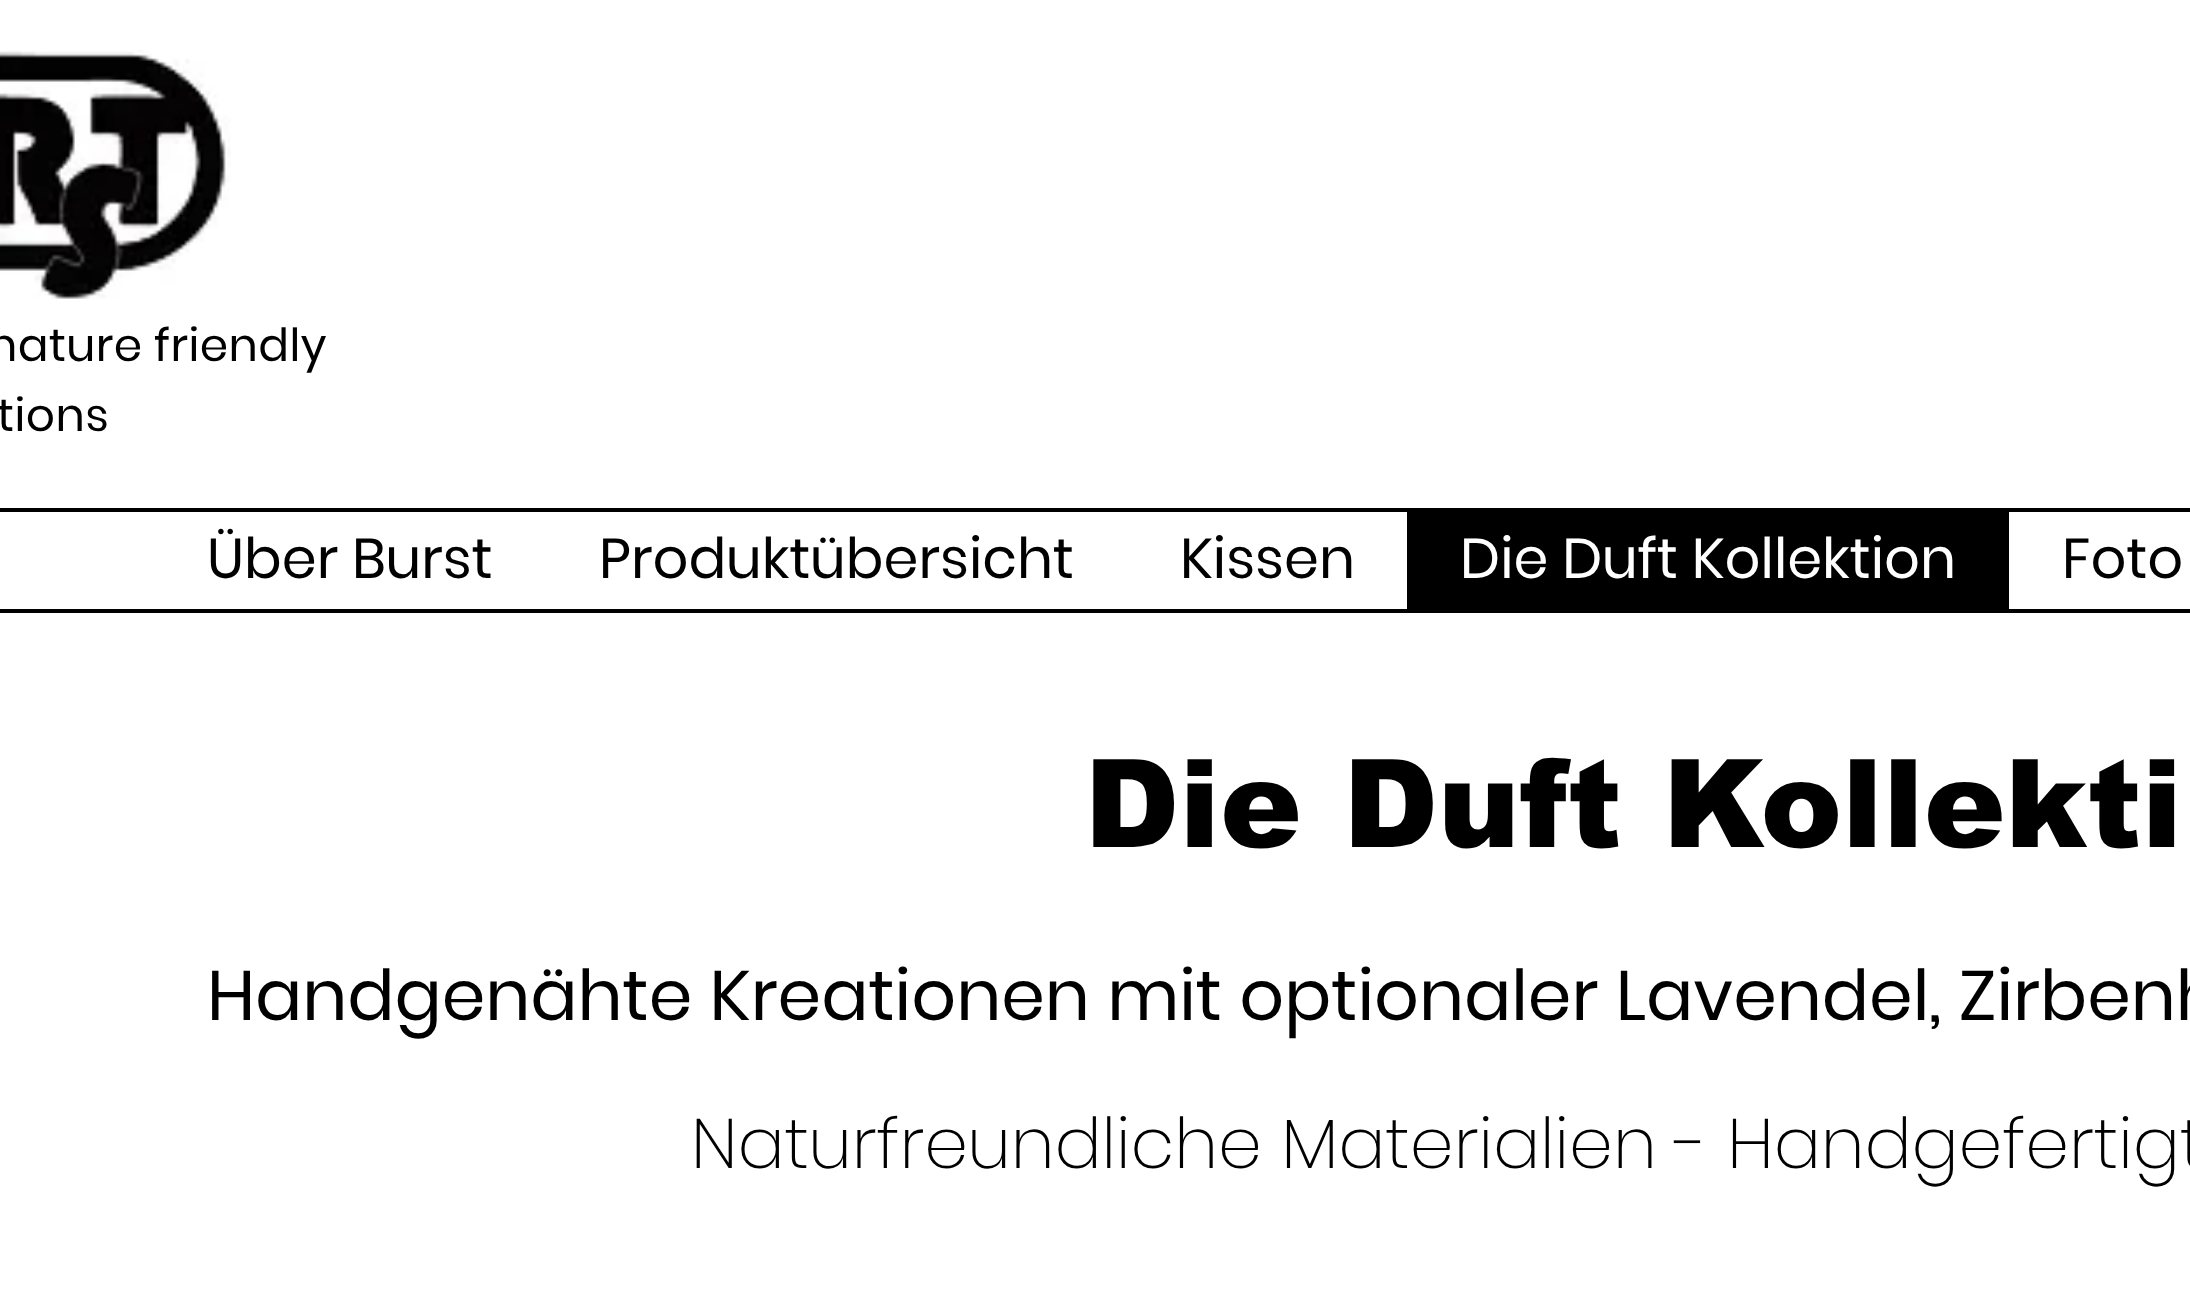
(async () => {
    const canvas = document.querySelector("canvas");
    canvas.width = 2190;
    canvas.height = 1311;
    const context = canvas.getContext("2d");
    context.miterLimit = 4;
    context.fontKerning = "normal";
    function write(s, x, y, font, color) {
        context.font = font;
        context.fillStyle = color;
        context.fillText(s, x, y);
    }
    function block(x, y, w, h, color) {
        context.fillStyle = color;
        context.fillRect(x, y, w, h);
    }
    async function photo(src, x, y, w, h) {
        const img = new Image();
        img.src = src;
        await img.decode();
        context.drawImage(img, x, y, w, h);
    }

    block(0, 0, 2190, 1311, "rgb(255, 255, 255)");
    await photo("media/1.png", 0, 50, 231, 249);
    context.letterSpacing = "0.5px";
    write("nature friendly", -12, 361, "45.5px Poppins", "rgb(0, 0, 0)");
    write("tions", -3, 431, "45.5px Poppins", "rgb(0, 0, 0)");
    block(0, 508, 2190, 4, "rgb(0, 0, 0)");
    block(0, 609, 2190, 4, "rgb(0, 0, 0)");
    context.letterSpacing = "0px";
    write("Über Burst", 207, 578, "56px Poppins", "rgb(0, 0, 0)");
    write("Produktübersicht", 599, 578, "56px Poppins", "rgb(0, 0, 0)");
    write("Kissen", 1180, 578, "56px Poppins", "rgb(0, 0, 0)");
    block(1407, 512, 602, 97, "rgb(0, 0, 0)");
    write("Die Duft Kollektion", 1460, 578, "56px Poppins", "rgb(255, 255, 255)");
    write("Foto", 2062, 578, "56px Poppins", "rgb(0, 0, 0)");
    write("Die Duft Kollekti", 1084, 847, "900 122.5px arial", "rgb(0, 0, 0)");
    write("Handgenähte Kreationen mit optionaler Lavendel, Zirbenh", 207, 1020, "70px Poppins", "rgb(0, 0, 0)");
    write("Naturfreundliche Materialien - Handgefertigt", 691, 1168, "200 70px Poppins", "rgb(0, 0, 0)");
})();
